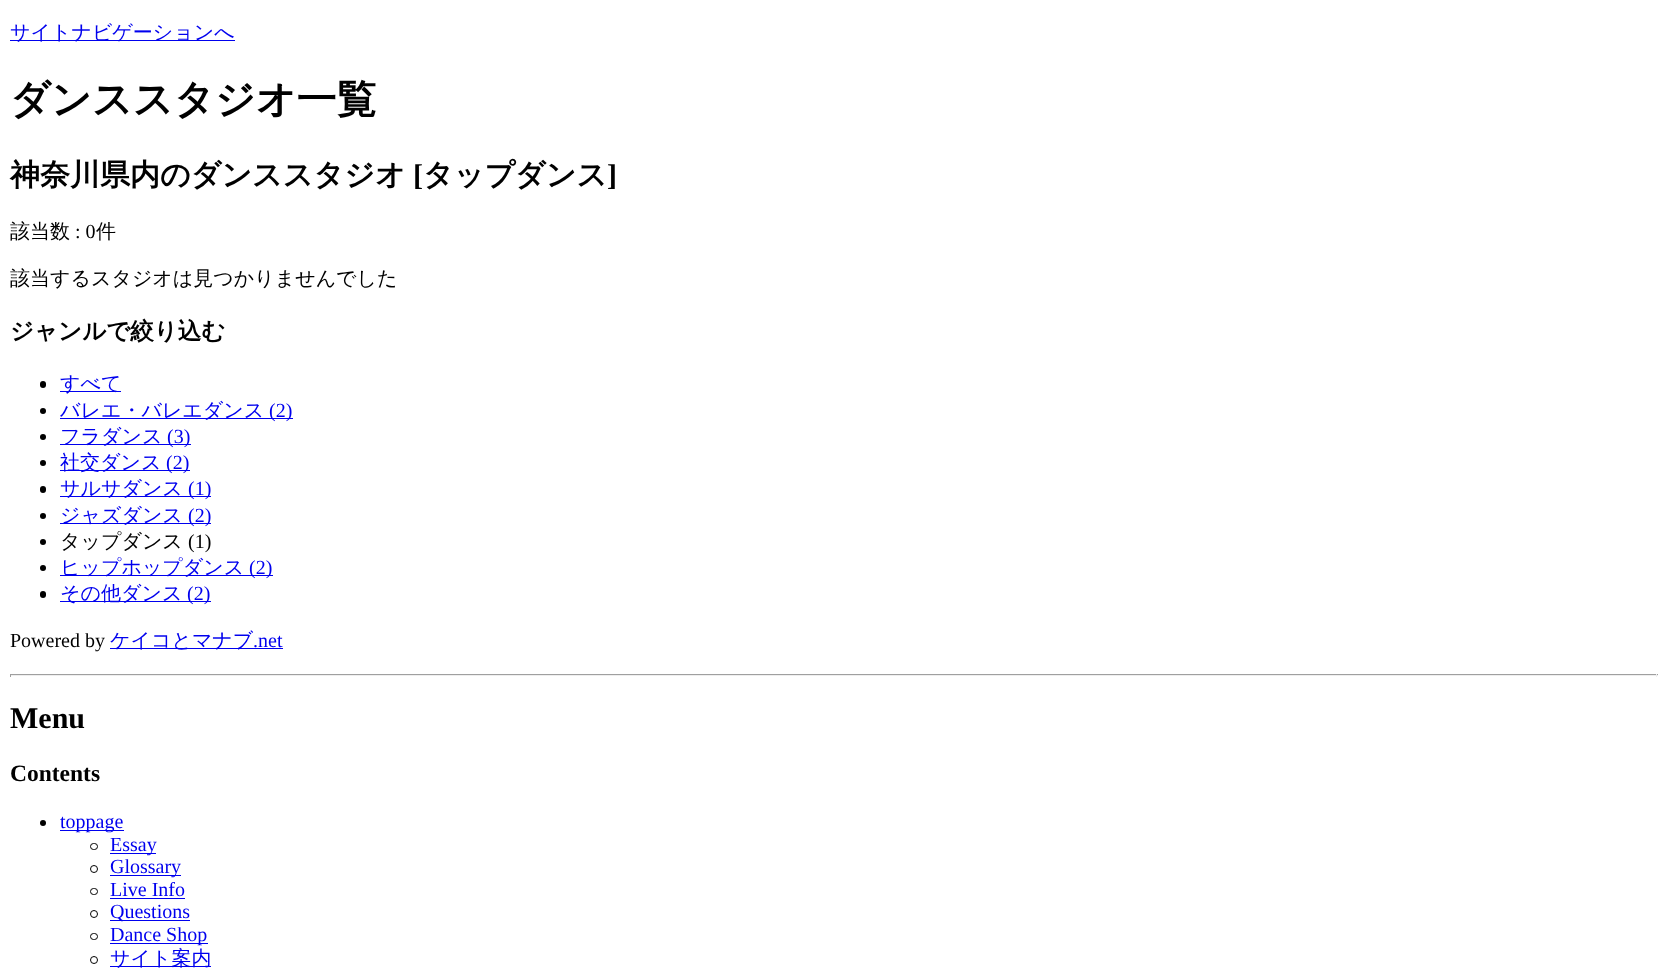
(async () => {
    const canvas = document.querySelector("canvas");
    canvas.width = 1667;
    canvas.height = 978;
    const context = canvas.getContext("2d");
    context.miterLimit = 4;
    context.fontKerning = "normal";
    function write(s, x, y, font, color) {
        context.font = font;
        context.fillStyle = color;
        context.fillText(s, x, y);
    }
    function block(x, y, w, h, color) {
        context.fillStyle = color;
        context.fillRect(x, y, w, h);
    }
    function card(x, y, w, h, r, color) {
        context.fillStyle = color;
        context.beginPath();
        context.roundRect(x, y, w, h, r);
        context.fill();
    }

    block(0, 0, 1667, 978, "rgb(255, 255, 255)");
    block(10, 40, 225, 1, "rgb(0, 0, 238)");
    write("サイトナビゲーションへ", 10, 39, "500 20px WenQuanYi Zen Hei", "rgb(0, 0, 238)");
    write("ダンススタジオ一覧", 10, 113, "bold 40px WenQuanYi Zen Hei", "rgb(0, 0, 0)");
    write("神奈川県内のダンススタジオ", 10, 185, "bold 30px WenQuanYi Zen Hei", "rgb(0, 0, 0)");
    write("[", 413, 185, "bold 30px Liberation Serif", "rgb(0, 0, 0)");
    write("タップダンス", 423, 185, "bold 30px WenQuanYi Zen Hei", "rgb(0, 0, 0)");
    write("]", 607, 185, "bold 30px Liberation Serif", "rgb(0, 0, 0)");
    write("該当数", 10, 238, "500 20px WenQuanYi Zen Hei", "rgb(0, 0, 0)");
    write(": 0", 75, 238, "20px Liberation Serif", "rgb(0, 0, 0)");
    write("件", 96, 238, "500 20px WenQuanYi Zen Hei", "rgb(0, 0, 0)");
    write("該当するスタジオは見つかりませんでした", 10, 285, "500 20px WenQuanYi Zen Hei", "rgb(0, 0, 0)");
    write("ジャンルで絞り込む", 10, 339, "bold 23.5px WenQuanYi Zen Hei", "rgb(0, 0, 0)");
    card(40, 381, 6, 7, 3, "rgb(0, 0, 0)");
    block(60, 391, 61, 1, "rgb(0, 0, 238)");
    write("すべて", 60, 390, "500 20px WenQuanYi Zen Hei", "rgb(0, 0, 238)");
    context.fillStyle = "rgb(0, 0, 0)";
    context.beginPath();
    context.arc(43, 411, 3, 0, Math.PI * 2);
    context.fill();
    block(60, 418, 233, 1, "rgb(0, 0, 238)");
    write("バレエ・バレエダンス", 60, 417, "500 20px WenQuanYi Zen Hei", "rgb(0, 0, 238)");
    write("(2)", 269, 417, "20px Liberation Serif", "rgb(0, 0, 238)");
    context.fillStyle = "rgb(0, 0, 0)";
    context.beginPath();
    context.arc(43, 437, 3, 0, Math.PI * 2);
    context.fill();
    block(60, 444, 131, 1, "rgb(0, 0, 238)");
    write("フラダンス", 60, 443, "500 20px WenQuanYi Zen Hei", "rgb(0, 0, 238)");
    write("(3)", 167, 443, "20px Liberation Serif", "rgb(0, 0, 238)");
    context.fillStyle = "rgb(0, 0, 0)";
    context.beginPath();
    context.arc(43, 463, 3, 0, Math.PI * 2);
    context.fill();
    block(60, 470, 130, 1, "rgb(0, 0, 238)");
    write("社交ダンス", 60, 469, "500 20px WenQuanYi Zen Hei", "rgb(0, 0, 238)");
    write("(2)", 166, 469, "20px Liberation Serif", "rgb(0, 0, 238)");
    card(40, 486, 6, 7, 3, "rgb(0, 0, 0)");
    block(60, 496, 151, 1, "rgb(0, 0, 238)");
    write("サルサダンス", 60, 495, "500 20px WenQuanYi Zen Hei", "rgb(0, 0, 238)");
    write("(1)", 188, 495, "20px Liberation Serif", "rgb(0, 0, 238)");
    context.fillStyle = "rgb(0, 0, 0)";
    context.beginPath();
    context.arc(43, 516, 3, 0, Math.PI * 2);
    context.fill();
    block(60, 523, 151, 1, "rgb(0, 0, 238)");
    write("ジャズダンス", 60, 522, "500 20px WenQuanYi Zen Hei", "rgb(0, 0, 238)");
    write("(2)", 188, 522, "20px Liberation Serif", "rgb(0, 0, 238)");
    context.fillStyle = "rgb(0, 0, 0)";
    context.beginPath();
    context.arc(43, 542, 3, 0, Math.PI * 2);
    context.fill();
    write("タップダンス", 60, 548, "500 20px WenQuanYi Zen Hei", "rgb(0, 0, 0)");
    write("(1)", 188, 548, "20px Liberation Serif", "rgb(0, 0, 0)");
    context.beginPath();
    context.arc(43, 568, 3, 0, Math.PI * 2);
    context.fill();
    block(60, 575, 213, 1, "rgb(0, 0, 238)");
    write("ヒップホップダンス", 60, 574, "500 20px WenQuanYi Zen Hei", "rgb(0, 0, 238)");
    write("(2)", 249, 574, "20px Liberation Serif", "rgb(0, 0, 238)");
    card(40, 591, 6, 7, 3, "rgb(0, 0, 0)");
    block(60, 601, 151, 1, "rgb(0, 0, 238)");
    write("その他ダンス", 60, 600, "500 20px WenQuanYi Zen Hei", "rgb(0, 0, 238)");
    write("(2)", 187, 600, "20px Liberation Serif", "rgb(0, 0, 238)");
    write("Powered by", 10, 647, "20px Liberation Serif", "rgb(0, 0, 0)");
    block(110, 648, 173, 1, "rgb(0, 0, 238)");
    write("ケイコとマナブ", 110, 647, "500 20px WenQuanYi Zen Hei", "rgb(0, 0, 238)");
    write(".net", 253, 647, "20px Liberation Serif", "rgb(0, 0, 238)");
    block(10, 674, 1648, 1, "rgb(159, 159, 159)");
    block(1656, 674, 1, 3, "rgb(238, 238, 238)");
    block(10, 675, 1648, 1, "rgb(238, 238, 238)");
    block(10, 674, 1, 3, "rgb(159, 159, 159)");
    write("Menu", 10, 728, "bold 30px Liberation Serif", "rgb(0, 0, 0)");
    write("Contents", 10, 781, "bold 23.5px Liberation Serif", "rgb(0, 0, 0)");
    context.beginPath();
    context.arc(43, 823, 3, 0, Math.PI * 2);
    context.fill();
    block(60, 830, 64, 1, "rgb(0, 0, 238)");
    write("toppage", 60, 828, "20px Liberation Serif", "rgb(0, 0, 238)");
    context.beginPath();
    context.roundRect(90.5, 843.5, 7, 6, 3);
    context.strokeStyle = "rgb(0, 0, 0)";
    context.stroke();
    block(110, 853, 46, 1, "rgb(0, 0, 238)");
    write("Essay", 110, 851, "20px Liberation Serif", "rgb(0, 0, 238)");
    context.beginPath();
    context.arc(94, 869, 3.5, 0, Math.PI * 2);
    context.stroke();
    block(110, 875, 71, 1, "rgb(0, 0, 238)");
    write("Glossary", 110, 873, "20px Liberation Serif", "rgb(0, 0, 238)");
    context.beginPath();
    context.roundRect(90.5, 888.5, 7, 6, 3);
    context.stroke();
    write("Live Info", 110, 896, "20px Liberation Serif", "rgb(0, 0, 238)");
    block(110, 898, 75, 1, "rgb(0, 0, 238)");
    context.beginPath();
    context.arc(94, 914, 3.5, 0, Math.PI * 2);
    context.stroke();
    block(110, 920, 80, 1, "rgb(0, 0, 238)");
    write("Questions", 110, 918, "20px Liberation Serif", "rgb(0, 0, 238)");
    context.beginPath();
    context.roundRect(90.5, 933.5, 7, 6, 3);
    context.stroke();
    block(110, 943, 98, 1, "rgb(0, 0, 238)");
    write("Dance Shop", 110, 941, "20px Liberation Serif", "rgb(0, 0, 238)");
    context.beginPath();
    context.arc(94, 960, 3.5, 0, Math.PI * 2);
    context.stroke();
    block(110, 966, 101, 1, "rgb(0, 0, 238)");
    write("サイト案内", 110, 965, "500 20px WenQuanYi Zen Hei", "rgb(0, 0, 238)");
})();
